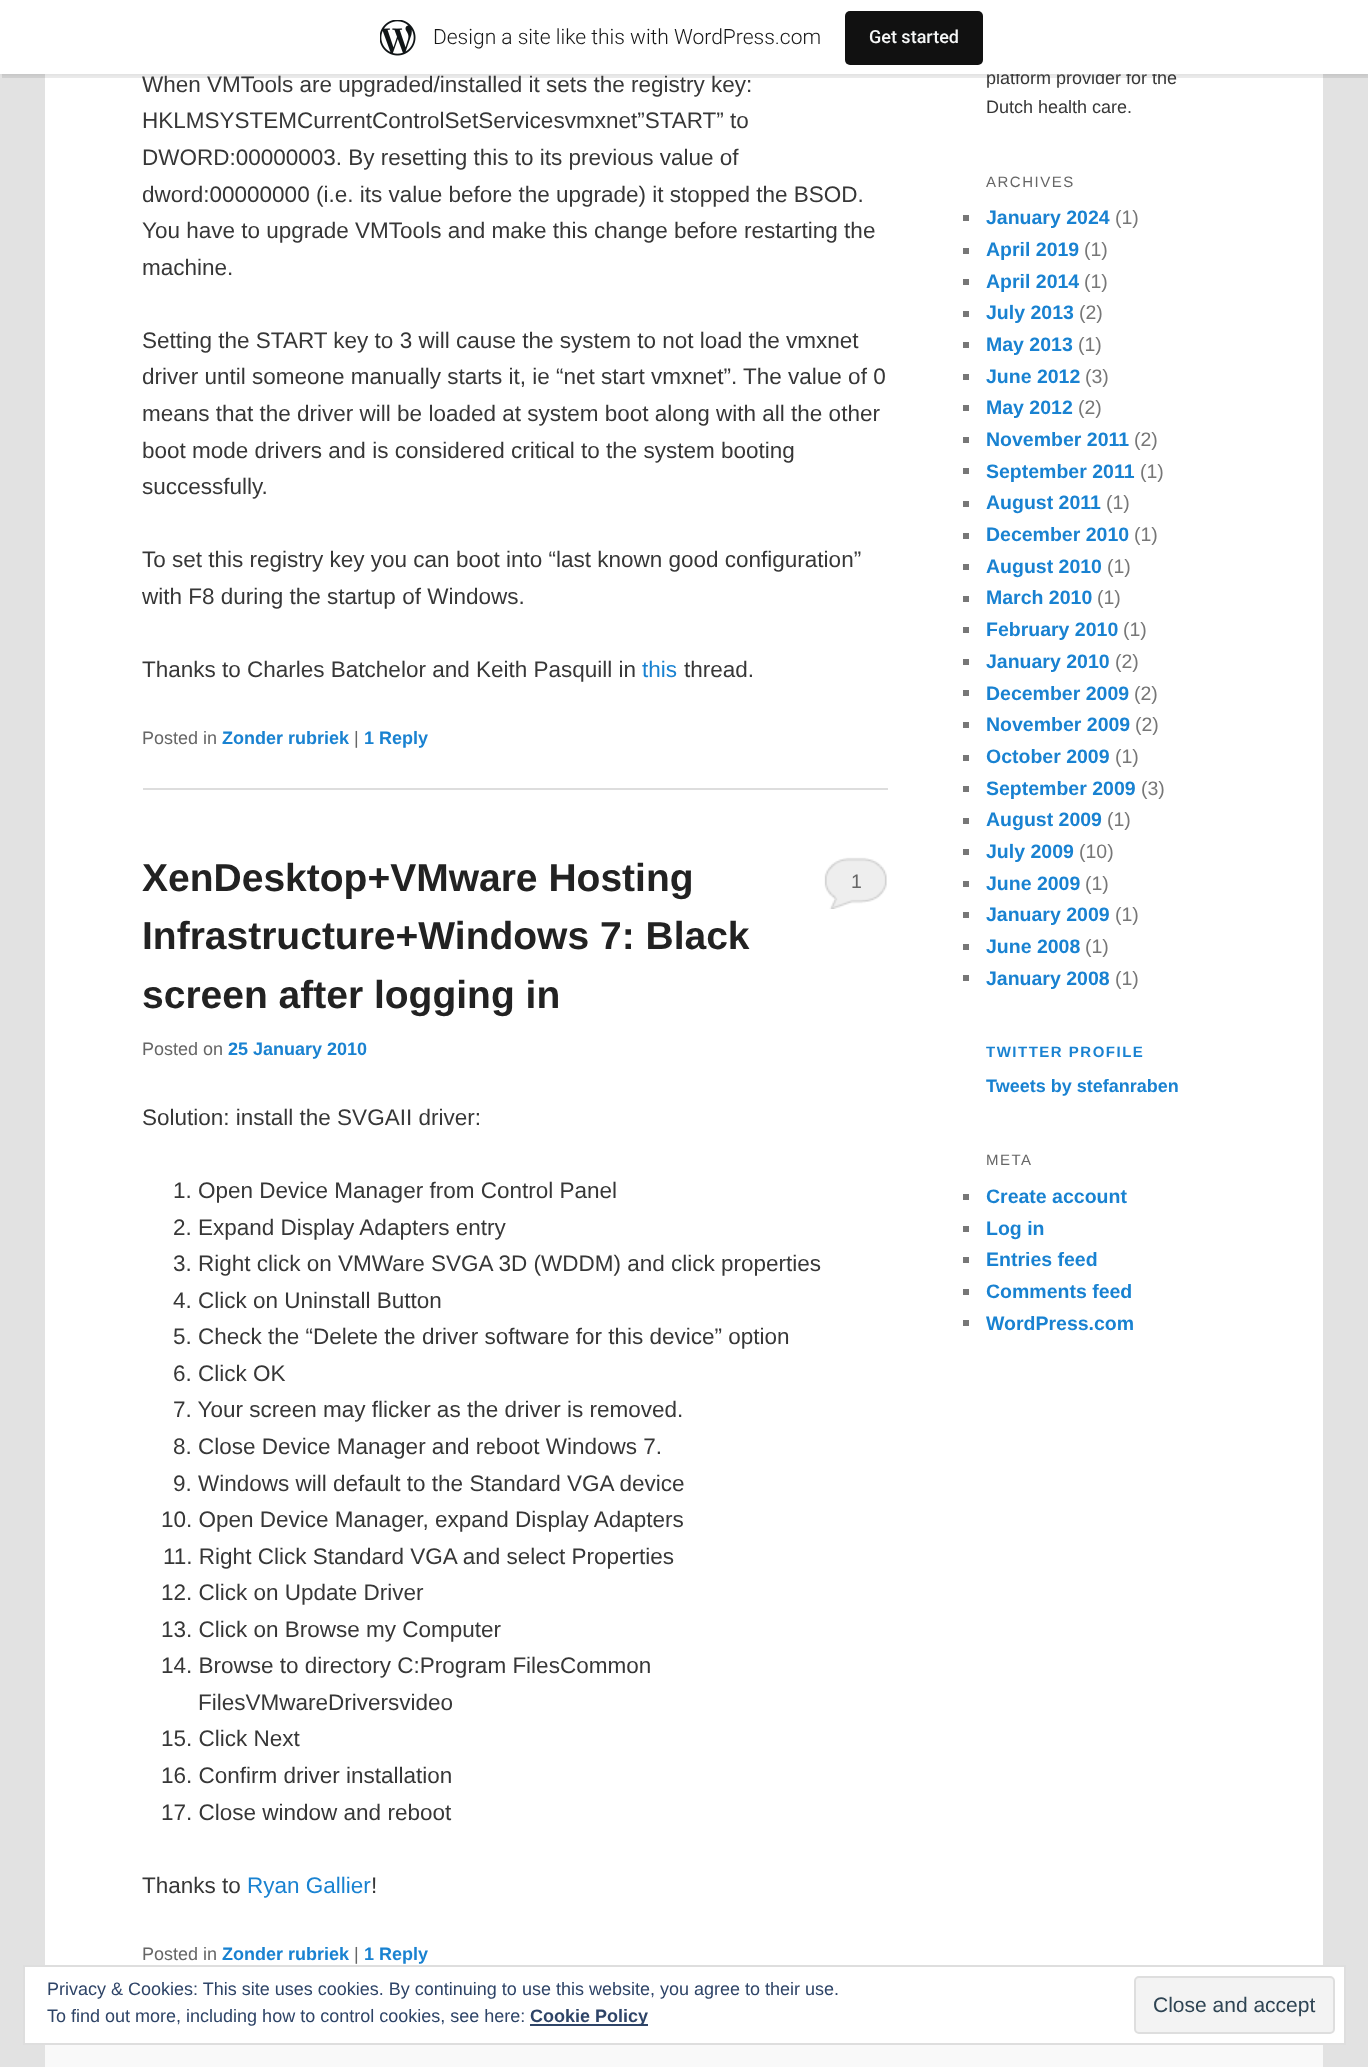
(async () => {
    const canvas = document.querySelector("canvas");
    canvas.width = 1368;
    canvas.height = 2067;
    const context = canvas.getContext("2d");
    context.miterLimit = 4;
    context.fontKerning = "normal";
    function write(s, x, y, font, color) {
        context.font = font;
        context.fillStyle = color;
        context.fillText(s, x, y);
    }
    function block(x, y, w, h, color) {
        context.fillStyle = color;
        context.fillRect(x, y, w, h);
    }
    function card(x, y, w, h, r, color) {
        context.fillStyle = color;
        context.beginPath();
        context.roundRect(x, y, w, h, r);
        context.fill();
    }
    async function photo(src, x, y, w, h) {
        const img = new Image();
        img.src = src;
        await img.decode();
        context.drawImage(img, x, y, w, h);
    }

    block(0, 0, 1368, 2067, "rgb(226, 226, 226)");
    block(45, 74, 1278, 1891, "rgb(255, 255, 255)");
    context.fillStyle = "rgba(0, 0, 0, 0.05)";
    context.filter = "blur(1.5px)";
    context.beginPath();
    context.rect(0, 2, 1368, 73);
    context.fill();
    context.filter = "none";
    context.fillStyle = "rgba(0, 0, 0, 0.08)";
    context.beginPath();
    context.moveTo(2, 74);
    context.lineTo(2, 78);
    context.lineTo(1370, 78);
    context.lineTo(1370, 5);
    context.lineTo(1368, 5);
    context.lineTo(1368, 74);
    context.closePath();
    context.fill();
    write("platform provider for the", 986, 84, "18px Liberation Sans", "rgb(55, 55, 55)");
    block(0, 0, 1368, 74, "rgb(255, 255, 255)");
    await photo("media/1.png", 380, 20, 36, 36);
    write("Design a site like this with WordPress.com", 433, 44, "300 21px Roboto", "rgb(23, 23, 23)");
    card(845, 11, 138, 54, 5, "rgb(17, 17, 17)");
    write("Get started", 869, 43, "500 18px Roboto", "rgb(246, 247, 247)");
    block(143, 788, 745, 2, "rgb(221, 221, 221)");
    write("When VMTools are upgraded/installed it sets the registry key:", 142, 92, "22.5px Liberation Sans", "rgb(55, 55, 55)");
    write("HKLMSYSTEMCurrentControlSetServicesvmxnet”START” to", 142, 128, "22.5px Liberation Sans", "rgb(55, 55, 55)");
    write("DWORD:00000003. By resetting this to its previous value of", 142, 165, "22.5px Liberation Sans", "rgb(55, 55, 55)");
    write("dword:00000000 (i.e. its value before the upgrade) it stopped the BSOD.", 142, 202, "22.5px Liberation Sans", "rgb(55, 55, 55)");
    write("You have to upgrade VMTools and make this change before restarting the", 142, 238, "22.5px Liberation Sans", "rgb(55, 55, 55)");
    write("machine.", 142, 275, "22.5px Liberation Sans", "rgb(55, 55, 55)");
    write("Setting the START key to 3 will cause the system to not load the vmxnet", 142, 348, "22.5px Liberation Sans", "rgb(55, 55, 55)");
    write("driver until someone manually starts it, ie “net start vmxnet”. The value of 0", 142, 384, "22.5px Liberation Sans", "rgb(55, 55, 55)");
    write("means that the driver will be loaded at system boot along with all the other", 142, 421, "22.5px Liberation Sans", "rgb(55, 55, 55)");
    write("boot mode drivers and is considered critical to the system booting", 142, 458, "22.5px Liberation Sans", "rgb(55, 55, 55)");
    write("successfully.", 142, 494, "22.5px Liberation Sans", "rgb(55, 55, 55)");
    write("To set this registry key you can boot into “last known good configuration”", 142, 567, "22.5px Liberation Sans", "rgb(55, 55, 55)");
    write("with F8 during the startup of Windows.", 142, 604, "22.5px Liberation Sans", "rgb(55, 55, 55)");
    write("Thanks to Charles Batchelor and Keith Pasquill in", 142, 677, "22.5px Liberation Sans", "rgb(55, 55, 55)");
    write("this", 642, 677, "22.5px Liberation Sans", "rgb(25, 130, 209)");
    write("thread.", 684, 677, "22.5px Liberation Sans", "rgb(55, 55, 55)");
    write("Posted in", 142, 744, "18px Liberation Sans", "rgb(102, 102, 102)");
    write("Zonder rubriek", 222, 744, "bold 18px Liberation Sans", "rgb(25, 130, 209)");
    write("|", 354, 744, "18px Liberation Sans", "rgb(102, 102, 102)");
    write("1 Reply", 364, 744, "bold 18px Liberation Sans", "rgb(25, 130, 209)");
    write("XenDesktop+VMware Hosting", 142, 891, "bold 39px Liberation Sans", "rgb(34, 34, 34)");
    write("Infrastructure+Windows 7: Black", 142, 949, "bold 39px Liberation Sans", "rgb(34, 34, 34)");
    write("screen after logging in", 142, 1008, "bold 39px Liberation Sans", "rgb(34, 34, 34)");
    block(824, 857, 63, 52, "rgb(238, 238, 238)");
    await photo("media/2.png", 824, 855, 64, 54);
    write("1", 851, 888, "19.5px Liberation Sans", "rgb(102, 102, 102)");
    write("Posted on", 142, 1055, "18px Liberation Sans", "rgb(102, 102, 102)");
    write("25 January 2010", 228, 1055, "bold 18px Liberation Sans", "rgb(25, 130, 209)");
    write("Solution: install the SVGAII driver:", 142, 1125, "22.5px Liberation Sans", "rgb(55, 55, 55)");
    write("1. Open Device Manager from Control Panel", 173, 1198, "22.5px Liberation Sans", "rgb(55, 55, 55)");
    write("2. Expand Display Adapters entry", 173, 1235, "22.5px Liberation Sans", "rgb(55, 55, 55)");
    write("3. Right click on VMWare SVGA 3D (WDDM) and click properties", 173, 1271, "22.5px Liberation Sans", "rgb(55, 55, 55)");
    write("4. Click on Uninstall Button", 173, 1308, "22.5px Liberation Sans", "rgb(55, 55, 55)");
    write("5. Check the “Delete the driver software for this device” option", 173, 1344, "22.5px Liberation Sans", "rgb(55, 55, 55)");
    write("6. Click OK", 173, 1381, "22.5px Liberation Sans", "rgb(55, 55, 55)");
    write("7. Your screen may flicker as the driver is removed.", 173, 1417, "22.5px Liberation Sans", "rgb(55, 55, 55)");
    write("8. Close Device Manager and reboot Windows 7.", 173, 1454, "22.5px Liberation Sans", "rgb(55, 55, 55)");
    write("9. Windows will default to the Standard VGA device", 173, 1491, "22.5px Liberation Sans", "rgb(55, 55, 55)");
    write("10. Open Device Manager, expand Display Adapters", 161, 1527, "22.5px Liberation Sans", "rgb(55, 55, 55)");
    write("11. Right Click Standard VGA and select Properties", 163, 1564, "22.5px Liberation Sans", "rgb(55, 55, 55)");
    write("12. Click on Update Driver", 161, 1600, "22.5px Liberation Sans", "rgb(55, 55, 55)");
    write("13. Click on Browse my Computer", 161, 1637, "22.5px Liberation Sans", "rgb(55, 55, 55)");
    write("14. Browse to directory C:Program FilesCommon", 161, 1673, "22.5px Liberation Sans", "rgb(55, 55, 55)");
    write("FilesVMwareDriversvideo", 198, 1710, "22.5px Liberation Sans", "rgb(55, 55, 55)");
    write("15. Click Next", 161, 1746, "22.5px Liberation Sans", "rgb(55, 55, 55)");
    write("16. Confirm driver installation", 161, 1783, "22.5px Liberation Sans", "rgb(55, 55, 55)");
    write("17. Close window and reboot", 161, 1820, "22.5px Liberation Sans", "rgb(55, 55, 55)");
    write("Thanks to", 142, 1893, "22.5px Liberation Sans", "rgb(55, 55, 55)");
    write("Ryan Gallier", 247, 1893, "22.5px Liberation Sans", "rgb(25, 130, 209)");
    write("!", 371, 1893, "22.5px Liberation Sans", "rgb(55, 55, 55)");
    write("Posted in", 142, 1960, "18px Liberation Sans", "rgb(102, 102, 102)");
    write("Zonder rubriek", 222, 1960, "bold 18px Liberation Sans", "rgb(25, 130, 209)");
    write("|", 354, 1960, "18px Liberation Sans", "rgb(102, 102, 102)");
    write("1 Reply", 364, 1960, "bold 18px Liberation Sans", "rgb(25, 130, 209)");
    write("Dutch health care.", 986, 113, "18px Liberation Sans", "rgb(55, 55, 55)");
    context.letterSpacing = "1.5px";
    write("ARCHIVES", 986, 187, "15px Liberation Sans", "rgb(102, 102, 102)");
    block(963, 215, 6, 6, "rgb(119, 119, 119)");
    context.letterSpacing = "0px";
    write("January 2024", 986, 224, "bold 19.5px Liberation Sans", "rgb(25, 130, 209)");
    write("(1)", 1115, 224, "19.5px Liberation Sans", "rgb(119, 119, 119)");
    block(963, 248, 6, 6, "rgb(119, 119, 119)");
    write("April 2019", 986, 256, "bold 19.5px Liberation Sans", "rgb(25, 130, 209)");
    write("(1)", 1084, 256, "19.5px Liberation Sans", "rgb(119, 119, 119)");
    block(963, 279, 6, 6, "rgb(119, 119, 119)");
    write("April 2014", 986, 288, "bold 19.5px Liberation Sans", "rgb(25, 130, 209)");
    write("(1)", 1084, 288, "19.5px Liberation Sans", "rgb(119, 119, 119)");
    block(963, 311, 6, 6, "rgb(119, 119, 119)");
    write("July 2013", 986, 319, "bold 19.5px Liberation Sans", "rgb(25, 130, 209)");
    write("(2)", 1079, 319, "19.5px Liberation Sans", "rgb(119, 119, 119)");
    block(963, 342, 6, 6, "rgb(119, 119, 119)");
    write("May 2013", 986, 351, "bold 19.5px Liberation Sans", "rgb(25, 130, 209)");
    write("(1)", 1078, 351, "19.5px Liberation Sans", "rgb(119, 119, 119)");
    block(963, 374, 6, 6, "rgb(119, 119, 119)");
    write("June 2012", 986, 383, "bold 19.5px Liberation Sans", "rgb(25, 130, 209)");
    write("(3)", 1085, 383, "19.5px Liberation Sans", "rgb(119, 119, 119)");
    block(963, 405, 6, 6, "rgb(119, 119, 119)");
    write("May 2012", 986, 414, "bold 19.5px Liberation Sans", "rgb(25, 130, 209)");
    write("(2)", 1078, 414, "19.5px Liberation Sans", "rgb(119, 119, 119)");
    block(963, 437, 6, 6, "rgb(119, 119, 119)");
    write("November 2011", 986, 446, "bold 19.5px Liberation Sans", "rgb(25, 130, 209)");
    write("(2)", 1134, 446, "19.5px Liberation Sans", "rgb(119, 119, 119)");
    block(963, 468, 6, 6, "rgb(119, 119, 119)");
    write("September 2011", 986, 478, "bold 19.5px Liberation Sans", "rgb(25, 130, 209)");
    write("(1)", 1140, 478, "19.5px Liberation Sans", "rgb(119, 119, 119)");
    block(963, 501, 6, 6, "rgb(119, 119, 119)");
    write("August 2011", 986, 509, "bold 19.5px Liberation Sans", "rgb(25, 130, 209)");
    write("(1)", 1106, 509, "19.5px Liberation Sans", "rgb(119, 119, 119)");
    block(963, 533, 6, 6, "rgb(119, 119, 119)");
    write("December 2010", 986, 541, "bold 19.5px Liberation Sans", "rgb(25, 130, 209)");
    write("(1)", 1134, 541, "19.5px Liberation Sans", "rgb(119, 119, 119)");
    block(963, 564, 6, 6, "rgb(119, 119, 119)");
    write("August 2010", 986, 573, "bold 19.5px Liberation Sans", "rgb(25, 130, 209)");
    write("(1)", 1107, 573, "19.5px Liberation Sans", "rgb(119, 119, 119)");
    block(963, 596, 6, 6, "rgb(119, 119, 119)");
    write("March 2010", 986, 604, "bold 19.5px Liberation Sans", "rgb(25, 130, 209)");
    write("(1)", 1097, 604, "19.5px Liberation Sans", "rgb(119, 119, 119)");
    block(963, 627, 6, 6, "rgb(119, 119, 119)");
    write("February 2010", 986, 636, "bold 19.5px Liberation Sans", "rgb(25, 130, 209)");
    write("(1)", 1123, 636, "19.5px Liberation Sans", "rgb(119, 119, 119)");
    block(963, 659, 6, 6, "rgb(119, 119, 119)");
    write("January 2010", 986, 668, "bold 19.5px Liberation Sans", "rgb(25, 130, 209)");
    write("(2)", 1115, 668, "19.5px Liberation Sans", "rgb(119, 119, 119)");
    block(963, 690, 6, 6, "rgb(119, 119, 119)");
    write("December 2009", 986, 700, "bold 19.5px Liberation Sans", "rgb(25, 130, 209)");
    write("(2)", 1134, 700, "19.5px Liberation Sans", "rgb(119, 119, 119)");
    block(963, 722, 6, 6, "rgb(119, 119, 119)");
    write("November 2009", 986, 731, "bold 19.5px Liberation Sans", "rgb(25, 130, 209)");
    write("(2)", 1135, 731, "19.5px Liberation Sans", "rgb(119, 119, 119)");
    block(963, 755, 6, 6, "rgb(119, 119, 119)");
    write("October 2009", 986, 763, "bold 19.5px Liberation Sans", "rgb(25, 130, 209)");
    write("(1)", 1115, 763, "19.5px Liberation Sans", "rgb(119, 119, 119)");
    block(963, 786, 6, 6, "rgb(119, 119, 119)");
    write("September 2009", 986, 795, "bold 19.5px Liberation Sans", "rgb(25, 130, 209)");
    write("(3)", 1141, 795, "19.5px Liberation Sans", "rgb(119, 119, 119)");
    block(963, 818, 6, 6, "rgb(119, 119, 119)");
    write("August 2009", 986, 826, "bold 19.5px Liberation Sans", "rgb(25, 130, 209)");
    write("(1)", 1107, 826, "19.5px Liberation Sans", "rgb(119, 119, 119)");
    block(963, 849, 6, 6, "rgb(119, 119, 119)");
    write("July 2009", 986, 858, "bold 19.5px Liberation Sans", "rgb(25, 130, 209)");
    write("(10)", 1079, 858, "19.5px Liberation Sans", "rgb(119, 119, 119)");
    block(963, 881, 6, 6, "rgb(119, 119, 119)");
    write("June 2009", 986, 890, "bold 19.5px Liberation Sans", "rgb(25, 130, 209)");
    write("(1)", 1085, 890, "19.5px Liberation Sans", "rgb(119, 119, 119)");
    block(963, 912, 6, 6, "rgb(119, 119, 119)");
    write("January 2009", 986, 921, "bold 19.5px Liberation Sans", "rgb(25, 130, 209)");
    write("(1)", 1115, 921, "19.5px Liberation Sans", "rgb(119, 119, 119)");
    block(963, 944, 6, 6, "rgb(119, 119, 119)");
    write("June 2008", 986, 953, "bold 19.5px Liberation Sans", "rgb(25, 130, 209)");
    write("(1)", 1085, 953, "19.5px Liberation Sans", "rgb(119, 119, 119)");
    block(963, 975, 6, 6, "rgb(119, 119, 119)");
    write("January 2008", 986, 985, "bold 19.5px Liberation Sans", "rgb(25, 130, 209)");
    write("(1)", 1115, 985, "19.5px Liberation Sans", "rgb(119, 119, 119)");
    context.letterSpacing = "1.5px";
    write("TWITTER PROFILE", 986, 1057, "bold 15px Liberation Sans", "rgb(25, 130, 209)");
    context.letterSpacing = "0px";
    write("Tweets by stefanraben", 986, 1092, "bold 18px Liberation Sans", "rgb(25, 130, 209)");
    context.letterSpacing = "1.5px";
    write("META", 986, 1165, "15px Liberation Sans", "rgb(102, 102, 102)");
    block(963, 1194, 6, 6, "rgb(119, 119, 119)");
    context.letterSpacing = "0px";
    write("Create account", 986, 1203, "bold 19.5px Liberation Sans", "rgb(25, 130, 209)");
    block(963, 1226, 6, 6, "rgb(119, 119, 119)");
    write("Log in", 986, 1235, "bold 19.5px Liberation Sans", "rgb(25, 130, 209)");
    block(963, 1257, 6, 6, "rgb(119, 119, 119)");
    write("Entries feed", 986, 1266, "bold 19.5px Liberation Sans", "rgb(25, 130, 209)");
    block(963, 1289, 6, 6, "rgb(119, 119, 119)");
    write("Comments feed", 986, 1298, "bold 19.5px Liberation Sans", "rgb(25, 130, 209)");
    block(963, 1320, 6, 6, "rgb(119, 119, 119)");
    write("WordPress.com", 986, 1330, "bold 19.5px Liberation Sans", "rgb(25, 130, 209)");
    block(45, 2045, 1278, 22, "rgb(249, 249, 249)");
    context.fillStyle = "rgb(255, 255, 255)";
    context.beginPath();
    context.rect(24, 1966, 1321, 78);
    context.fill();
    context.strokeStyle = "rgb(222, 222, 222)";
    context.lineWidth = 2;
    context.stroke();
    write("Privacy & Cookies: This site uses cookies. By continuing to use this website, you agree to their use.", 47, 1995, "18px Liberation Sans", "rgb(46, 68, 103)");
    write("To find out more, including how to control cookies, see here:", 47, 2022, "18px Liberation Sans", "rgb(46, 68, 103)");
    block(530, 2024, 118, 2, "rgb(46, 68, 103)");
    write("Cookie Policy", 530, 2022, "bold 18px Liberation Sans", "rgb(46, 68, 103)");
    context.fillStyle = "rgb(243, 243, 243)";
    context.beginPath();
    context.roundRect(1135, 1977, 199, 56, 4);
    context.fill();
    context.stroke();
    write("Close and accept", 1153, 2012, "21px Liberation Sans", "rgb(46, 68, 83)");
})();
